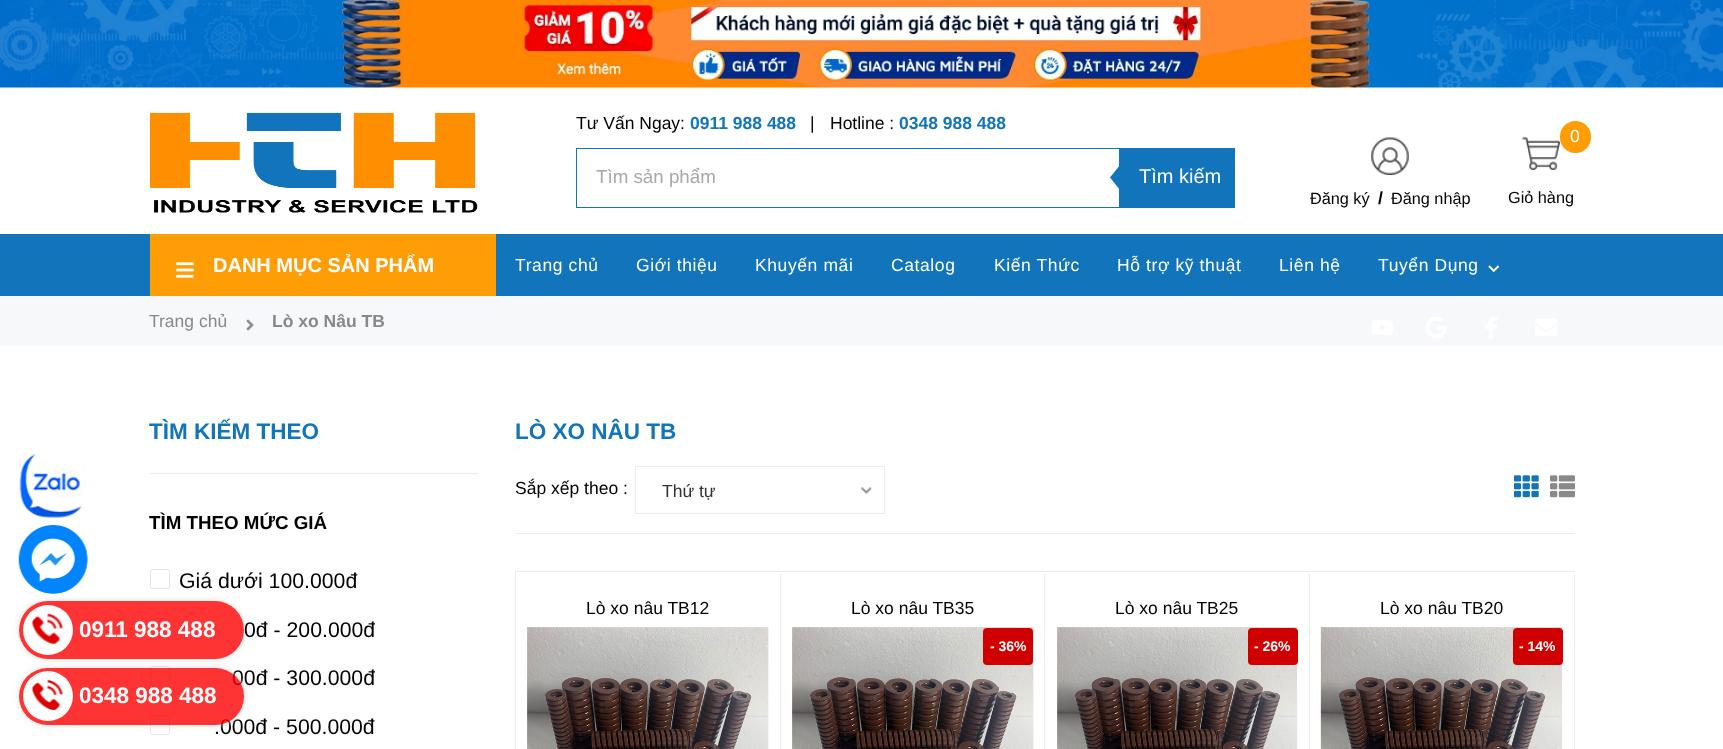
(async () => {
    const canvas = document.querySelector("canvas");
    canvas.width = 1723;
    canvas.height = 749;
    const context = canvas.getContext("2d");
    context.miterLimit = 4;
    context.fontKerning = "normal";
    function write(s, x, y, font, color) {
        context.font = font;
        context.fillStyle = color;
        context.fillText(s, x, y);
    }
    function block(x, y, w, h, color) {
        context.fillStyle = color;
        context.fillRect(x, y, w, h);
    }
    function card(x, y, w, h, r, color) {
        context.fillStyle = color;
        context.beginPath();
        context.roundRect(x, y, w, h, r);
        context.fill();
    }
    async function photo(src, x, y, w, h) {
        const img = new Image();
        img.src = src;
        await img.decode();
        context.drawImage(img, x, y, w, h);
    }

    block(0, 0, 1723, 749, "rgb(255, 255, 255)");
    await photo("media/1.png", 0, 0, 1723, 88);
    await photo("media/2.png", 150, 112, 328, 101);
    write("Tư Vấn Ngay:", 576, 129, "17.5px Liberation Sans", "rgb(0, 0, 0)");
    write("0911 988 488", 690, 129, "bold 17.5px Liberation Sans", "rgb(18, 116, 186)");
    write("|", 810, 129, "17.5px Liberation Sans", "rgb(0, 0, 0)");
    write("Hotline :", 830, 129, "17.5px Liberation Sans", "rgb(0, 0, 0)");
    write("0348 988 488", 899, 129, "bold 17.5px Liberation Sans", "rgb(18, 116, 186)");
    context.strokeStyle = "rgb(18, 116, 186)";
    context.strokeRect(576.5, 148.5, 658, 59);
    write("Tìm sản phẩm", 596, 183, "18.75px Liberation Sans", "rgb(164, 169, 174)");
    block(1119, 149, 115, 58, "rgb(18, 116, 186)");
    context.beginPath();
    context.moveTo(1120, 165);
    context.lineTo(1120, 190);
    context.lineTo(1110, 177.5);
    context.closePath();
    context.fill();
    write("Tìm kiếm", 1139, 183, "20px Liberation Sans", "rgb(255, 255, 255)");
    await photo("media/3.png", 1371, 137, 38, 38);
    write("Đăng ký", 1310, 204, "16.25px Liberation Sans", "rgb(0, 0, 0)");
    write("/", 1378, 204, "bold 17.5px Liberation Sans", "rgb(0, 0, 0)");
    write("Đăng nhập", 1391, 204, "16.25px Liberation Sans", "rgb(0, 0, 0)");
    await photo("media/4.png", 1522, 137, 38, 33);
    card(1560, 121, 31, 32, 15.5, "rgb(255, 157, 6)");
    write("0", 1570, 142, "17.5px Liberation Sans", "rgb(255, 255, 255)");
    write("Giỏ hàng", 1508, 203, "16.25px Liberation Sans", "rgb(0, 0, 0)");
    block(0, 234, 1723, 62, "rgb(18, 116, 186)");
    block(150, 234, 346, 62, "rgb(255, 157, 6)");
    await photo("media/5.png", 176, 262, 18, 16);
    write("DANH MỤC SẢN PHẨM", 213, 272, "bold 20px Liberation Sans", "rgb(255, 255, 255)");
    context.letterSpacing = "0.6px";
    write("Trang chủ", 515, 271, "17.5px Liberation Sans", "rgb(255, 255, 255)");
    write("Giới thiệu", 636, 271, "17.5px Liberation Sans", "rgb(255, 255, 255)");
    write("Khuyến mãi", 755, 271, "17.5px Liberation Sans", "rgb(255, 255, 255)");
    write("Catalog", 891, 271, "17.5px Liberation Sans", "rgb(255, 255, 255)");
    write("Kiến Thức", 994, 271, "17.5px Liberation Sans", "rgb(255, 255, 255)");
    write("Hỗ trợ kỹ thuật", 1117, 271, "17.5px Liberation Sans", "rgb(255, 255, 255)");
    write("Liên hệ", 1279, 271, "17.5px Liberation Sans", "rgb(255, 255, 255)");
    write("Tuyển Dụng", 1378, 271, "17.5px Liberation Sans", "rgb(255, 255, 255)");
    await photo("media/6.png", 1488, 265, 11, 7);
    block(0, 296, 1723, 50, "rgb(247, 248, 249)");
    await photo("media/7.png", 1372, 320, 21, 15);
    await photo("media/8.png", 1426, 317, 21, 21);
    await photo("media/9.png", 1485, 316, 12, 23);
    await photo("media/10.png", 1535, 319, 23, 17);
    context.letterSpacing = "0px";
    write("Trang chủ", 149, 327, "17.5px Liberation Sans", "rgb(137, 137, 137)");
    await photo("media/11.png", 246, 319, 8, 12);
    write("Lò xo Nâu TB", 272, 327, "bold 17.5px Liberation Sans", "rgb(137, 137, 137)");
    await photo("media/12.png", 19, 453, 68, 65);
    context.beginPath();
    context.roundRect(150.5, 618.5, 19, 19, 2);
    context.strokeStyle = "rgb(229, 229, 229)";
    context.stroke();
    context.beginPath();
    context.roundRect(150.5, 666.5, 19, 19, 2);
    context.stroke();
    write("00đ - 300.000đ", 232, 685, "21.25px Liberation Sans", "rgb(0, 0, 0)");
    context.beginPath();
    context.roundRect(150.5, 715.5, 19, 19, 2);
    context.stroke();
    write(".000đ - 500.000đ", 214, 734, "21.25px Liberation Sans", "rgb(0, 0, 0)");
    context.save();
    context.beginPath();
    context.moveTo(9, 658);
    context.lineTo(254, 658);
    context.lineTo(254, 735);
    context.lineTo(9, 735);
    context.closePath();
    context.moveTo(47.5, 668);
    context.lineTo(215.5, 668);
    context.bezierCurveTo(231, 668, 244, 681, 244, 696.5);
    context.bezierCurveTo(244, 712, 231, 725, 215.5, 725);
    context.lineTo(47.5, 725);
    context.bezierCurveTo(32, 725, 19, 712, 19, 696.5);
    context.bezierCurveTo(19, 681, 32, 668, 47.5, 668);
    context.closePath();
    context.clip("evenodd");
    context.fillStyle = "rgb(221, 221, 221)";
    context.filter = "blur(3px)";
    context.beginPath();
    context.roundRect(19, 668, 225, 57, 28.5);
    context.fill();
    context.filter = "none";
    context.restore();
    card(19, 668, 225, 57, 28.5, "rgba(254, 0, 0, 0.8)");
    context.save();
    context.beginPath();
    context.moveTo(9, 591);
    context.lineTo(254, 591);
    context.lineTo(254, 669);
    context.lineTo(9, 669);
    context.closePath();
    context.moveTo(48, 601);
    context.lineTo(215, 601);
    context.bezierCurveTo(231, 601, 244, 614, 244, 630);
    context.bezierCurveTo(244, 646, 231, 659, 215, 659);
    context.lineTo(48, 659);
    context.bezierCurveTo(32, 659, 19, 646, 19, 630);
    context.bezierCurveTo(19, 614, 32, 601, 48, 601);
    context.closePath();
    context.clip("evenodd");
    context.fillStyle = "rgb(221, 221, 221)";
    context.filter = "blur(3px)";
    context.beginPath();
    context.roundRect(19, 601, 225, 58, 29);
    context.fill();
    context.filter = "none";
    context.restore();
    await photo("media/13.png", 18, 525, 70, 69);
    block(150, 473, 328, 1, "rgb(235, 235, 235)");
    write("TÌM KIẾM THEO", 149, 439, "bold 22.5px Liberation Sans", "rgb(18, 116, 186)");
    write("TÌM THEO MỨC GIÁ", 149, 529, "bold 18.75px Liberation Sans", "rgb(0, 0, 0)");
    context.beginPath();
    context.roundRect(150.5, 569.5, 19, 19, 2);
    context.stroke();
    write("Giá dưới 100.000đ", 179, 588, "21.25px Liberation Sans", "rgb(0, 0, 0)");
    write("0đ - 200.000đ", 244, 637, "21.25px Liberation Sans", "rgb(0, 0, 0)");
    write("LÒ XO NÂU TB", 515, 439, "bold 22.5px Liberation Sans", "rgb(18, 116, 186)");
    block(515, 533, 1060, 1, "rgb(235, 235, 235)");
    write("Sắp xếp theo :", 515, 494, "17.5px Liberation Sans", "rgb(0, 0, 0)");
    await photo("media/14.png", 861, 487, 11, 7);
    context.strokeStyle = "rgb(235, 235, 235)";
    context.strokeRect(635.5, 466.5, 249, 47);
    write("Thứ tự", 662, 497, "17.5px Liberation Sans", "rgb(51, 51, 51)");
    await photo("media/15.png", 1514, 475, 25, 23);
    await photo("media/16.png", 1550, 475, 25, 23);
    block(515, 571, 1060, 1, "rgb(235, 235, 235)");
    block(515, 571, 1, 178, "rgb(235, 235, 235)");
    block(780, 574, 1, 175, "rgb(235, 235, 235)");
    write("Lò xo nâu TB12", 586, 614, "17.5px Liberation Sans", "rgb(0, 0, 0)");
    await photo("media/17.png", 527, 627, 242, 122);
    block(1044, 574, 1, 175, "rgb(235, 235, 235)");
    write("Lò xo nâu TB35", 851, 614, "17.5px Liberation Sans", "rgb(0, 0, 0)");
    await photo("media/17.png", 792, 627, 242, 122);
    card(983, 628, 50, 37, 4, "rgb(209, 0, 0)");
    write("- 36%", 990, 651, "bold 14px Liberation Sans", "rgb(255, 255, 255)");
    block(1309, 574, 1, 175, "rgb(235, 235, 235)");
    write("Lò xo nâu TB25", 1115, 614, "17.5px Liberation Sans", "rgb(0, 0, 0)");
    await photo("media/18.png", 1057, 627, 241, 122);
    card(1248, 628, 50, 37, 4, "rgb(209, 0, 0)");
    write("- 26%", 1254, 651, "bold 14px Liberation Sans", "rgb(255, 255, 255)");
    block(1574, 574, 1, 175, "rgb(235, 235, 235)");
    write("Lò xo nâu TB20", 1380, 614, "17.5px Liberation Sans", "rgb(0, 0, 0)");
    await photo("media/19.png", 1320, 627, 243, 122);
    card(1513, 628, 50, 37, 4, "rgb(209, 0, 0)");
    write("- 14%", 1519, 651, "bold 14px Liberation Sans", "rgb(255, 255, 255)");
    card(19, 601, 225, 58, 29, "rgba(254, 0, 0, 0.8)");
    context.fillStyle = "rgb(255, 255, 255)";
    context.beginPath();
    context.arc(48, 630, 25, 0, Math.PI * 2);
    context.fill();
    await photo("media/20.png", 32, 613, 31, 31);
    write("0911 988 488", 79, 637, "bold 22.5px Liberation Sans", "rgb(255, 255, 255)");
    context.beginPath();
    context.arc(48, 696, 25, 0, Math.PI * 2);
    context.fill();
    await photo("media/21.png", 32, 680, 31, 30);
    write("0348 988 488", 79, 703, "bold 22.5px Liberation Sans", "rgb(255, 255, 255)");
})();
